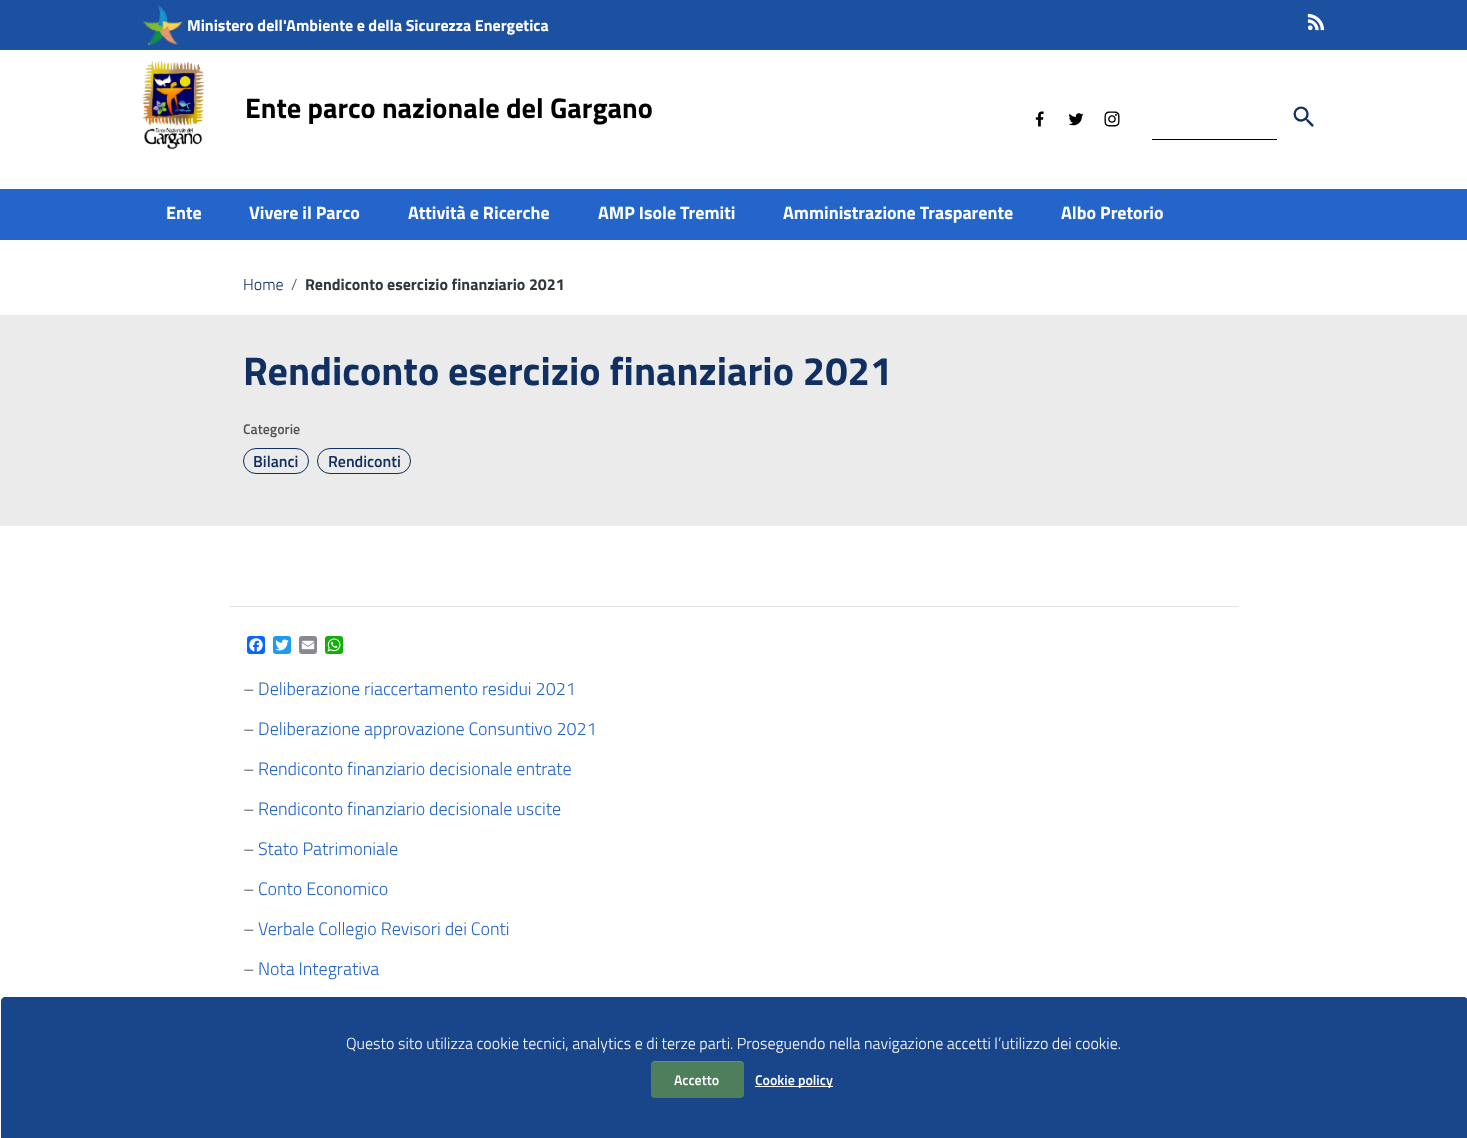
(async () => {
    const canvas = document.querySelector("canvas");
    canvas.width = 1467;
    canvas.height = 1138;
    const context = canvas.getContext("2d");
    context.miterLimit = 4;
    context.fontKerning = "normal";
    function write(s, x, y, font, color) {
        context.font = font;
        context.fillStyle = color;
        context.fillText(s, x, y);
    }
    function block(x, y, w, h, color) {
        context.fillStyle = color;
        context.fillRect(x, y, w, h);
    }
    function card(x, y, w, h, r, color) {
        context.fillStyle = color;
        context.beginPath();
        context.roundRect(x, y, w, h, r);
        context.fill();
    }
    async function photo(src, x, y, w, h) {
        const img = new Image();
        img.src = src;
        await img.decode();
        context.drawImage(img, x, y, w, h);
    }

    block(0, 0, 1467, 1138, "rgb(255, 255, 255)");
    block(0, 0, 1467, 50, "rgb(28, 80, 161)");
    await photo("media/1.png", 143, 5, 40, 40);
    write("Ministero dell'Ambiente e della Sicurezza Energetica", 187, 31, "bold 16px Titillium Web", "rgb(255, 255, 255)");
    await photo("media/2.png", 1307, 13, 18, 18);
    await photo("media/3.png", 142, 60, 63, 90);
    write("Ente parco nazionale del Gargano", 245, 118, "bold 28.4px Titillium Web", "rgb(0, 0, 0)");
    await photo("media/4.png", 1035, 111, 9, 16);
    await photo("media/5.png", 1068, 113, 16, 13);
    await photo("media/6.png", 1104, 111, 16, 16);
    await photo("media/7.png", 1293, 106, 21, 21);
    block(1152, 139, 125, 1, "rgb(0, 0, 0)");
    block(0, 189, 1467, 51, "rgb(36, 101, 204)");
    write("Ente", 166, 219, "bold 18px Titillium Web", "rgb(255, 255, 255)");
    write("Vivere il Parco", 249, 219, "bold 18px Titillium Web", "rgb(255, 255, 255)");
    write("Attività e Ricerche", 408, 219, "bold 18px Titillium Web", "rgb(255, 255, 255)");
    write("AMP Isole Tremiti", 598, 219, "bold 18px Titillium Web", "rgb(255, 255, 255)");
    write("Amministrazione Trasparente", 783, 219, "bold 18px Titillium Web", "rgb(255, 255, 255)");
    write("Albo Pretorio", 1061, 219, "bold 18px Titillium Web", "rgb(255, 255, 255)");
    write("Home", 243, 290, "300 16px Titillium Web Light", "rgb(17, 47, 96)");
    write("/", 291, 290, "300 16px Titillium Web Light", "rgb(85, 85, 85)");
    write("Rendiconto esercizio finanziario 2021", 305, 290, "bold 16px Titillium Web", "rgb(48, 55, 61)");
    block(0, 315, 1467, 211, "rgb(234, 235, 234)");
    write("Rendiconto esercizio finanziario 2021", 243, 385, "bold 40px Titillium Web", "rgb(17, 47, 96)");
    write("Categorie", 243, 434, "600 14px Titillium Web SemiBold", "rgb(85, 85, 85)");
    context.beginPath();
    context.roundRect(243.5, 448.5, 65, 25, 12.5);
    context.strokeStyle = "rgb(17, 47, 96)";
    context.stroke();
    write("Bilanci", 253, 467, "600 16px Titillium Web SemiBold", "rgb(17, 47, 96)");
    context.beginPath();
    context.roundRect(317.5, 448.5, 93, 25, 12.5);
    context.stroke();
    write("Rendiconti", 328, 467, "600 16px Titillium Web SemiBold", "rgb(17, 47, 96)");
    block(229, 606, 1010, 1, "rgb(229, 229, 229)");
    card(247, 636, 18, 18, 3, "rgb(8, 102, 255)");
    await photo("media/8.png", 249, 638, 14, 14);
    card(273, 636, 18, 18, 3, "rgb(29, 155, 240)");
    await photo("media/9.png", 275, 639, 14, 12);
    card(299, 636, 18, 18, 3, "rgb(136, 137, 144)");
    await photo("media/10.png", 301, 640, 14, 10);
    card(325, 636, 18, 18, 3, "rgb(18, 175, 10)");
    await photo("media/11.png", 327, 638, 14, 14);
    write("–", 243, 695, "300 18px Titillium Web Light", "rgb(85, 85, 85)");
    write("Deliberazione riaccertamento residui 2021", 258, 695, "300 18px Titillium Web Light", "rgb(36, 101, 204)");
    write("–", 243, 735, "300 18px Titillium Web Light", "rgb(85, 85, 85)");
    write("Deliberazione approvazione Consuntivo 2021", 258, 735, "300 18px Titillium Web Light", "rgb(36, 101, 204)");
    write("–", 243, 775, "300 18px Titillium Web Light", "rgb(85, 85, 85)");
    write("Rendiconto finanziario decisionale entrate", 258, 775, "300 18px Titillium Web Light", "rgb(36, 101, 204)");
    write("–", 243, 815, "300 18px Titillium Web Light", "rgb(85, 85, 85)");
    write("Rendiconto finanziario decisionale uscite", 258, 815, "300 18px Titillium Web Light", "rgb(36, 101, 204)");
    write("–", 243, 855, "300 18px Titillium Web Light", "rgb(85, 85, 85)");
    write("Stato Patrimoniale", 258, 855, "300 18px Titillium Web Light", "rgb(36, 101, 204)");
    write("–", 243, 895, "300 18px Titillium Web Light", "rgb(85, 85, 85)");
    write("Conto Economico", 258, 895, "300 18px Titillium Web Light", "rgb(36, 101, 204)");
    write("–", 243, 935, "300 18px Titillium Web Light", "rgb(85, 85, 85)");
    write("Verbale Collegio Revisori dei Conti", 258, 935, "300 18px Titillium Web Light", "rgb(36, 101, 204)");
    write("–", 243, 975, "300 18px Titillium Web Light", "rgb(85, 85, 85)");
    write("Nota Integrativa", 258, 975, "300 18px Titillium Web Light", "rgb(36, 101, 204)");
    context.fillStyle = "rgb(25, 69, 139)";
    context.beginPath();
    context.moveTo(5, 997);
    context.lineTo(1464, 997);
    context.bezierCurveTo(1466, 997, 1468, 999, 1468, 1001);
    context.lineTo(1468, 1138);
    context.lineTo(1, 1138);
    context.lineTo(1, 1001);
    context.bezierCurveTo(1, 999, 3, 997, 5, 997);
    context.closePath();
    context.fill();
    write("Questo sito utilizza cookie tecnici, analytics e di terze parti. Proseguendo nella navigazione accetti l’utilizzo dei cookie.", 346, 1049, "300 16px Titillium Web Light", "rgb(255, 255, 255)");
    card(651, 1061, 93, 37, 4, "rgb(78, 126, 91)");
    context.fillStyle = "rgba(255, 255, 255, 0.15)";
    context.beginPath();
    context.moveTo(654, 1062);
    context.lineTo(740, 1062);
    context.bezierCurveTo(742, 1062, 744, 1064, 744, 1066);
    context.lineTo(744, 1065);
    context.bezierCurveTo(744, 1063, 742, 1061, 740, 1061);
    context.lineTo(655, 1061);
    context.bezierCurveTo(654, 1061, 652, 1062, 652, 1063);
    context.closePath();
    context.fill();
    write("Accetto", 674, 1085, "600 14px Titillium Web SemiBold", "rgb(255, 255, 255)");
    block(755, 1086, 78, 1, "rgb(255, 255, 255)");
    write("Cookie policy", 755, 1085, "600 14px Titillium Web SemiBold", "rgb(255, 255, 255)");
})();
